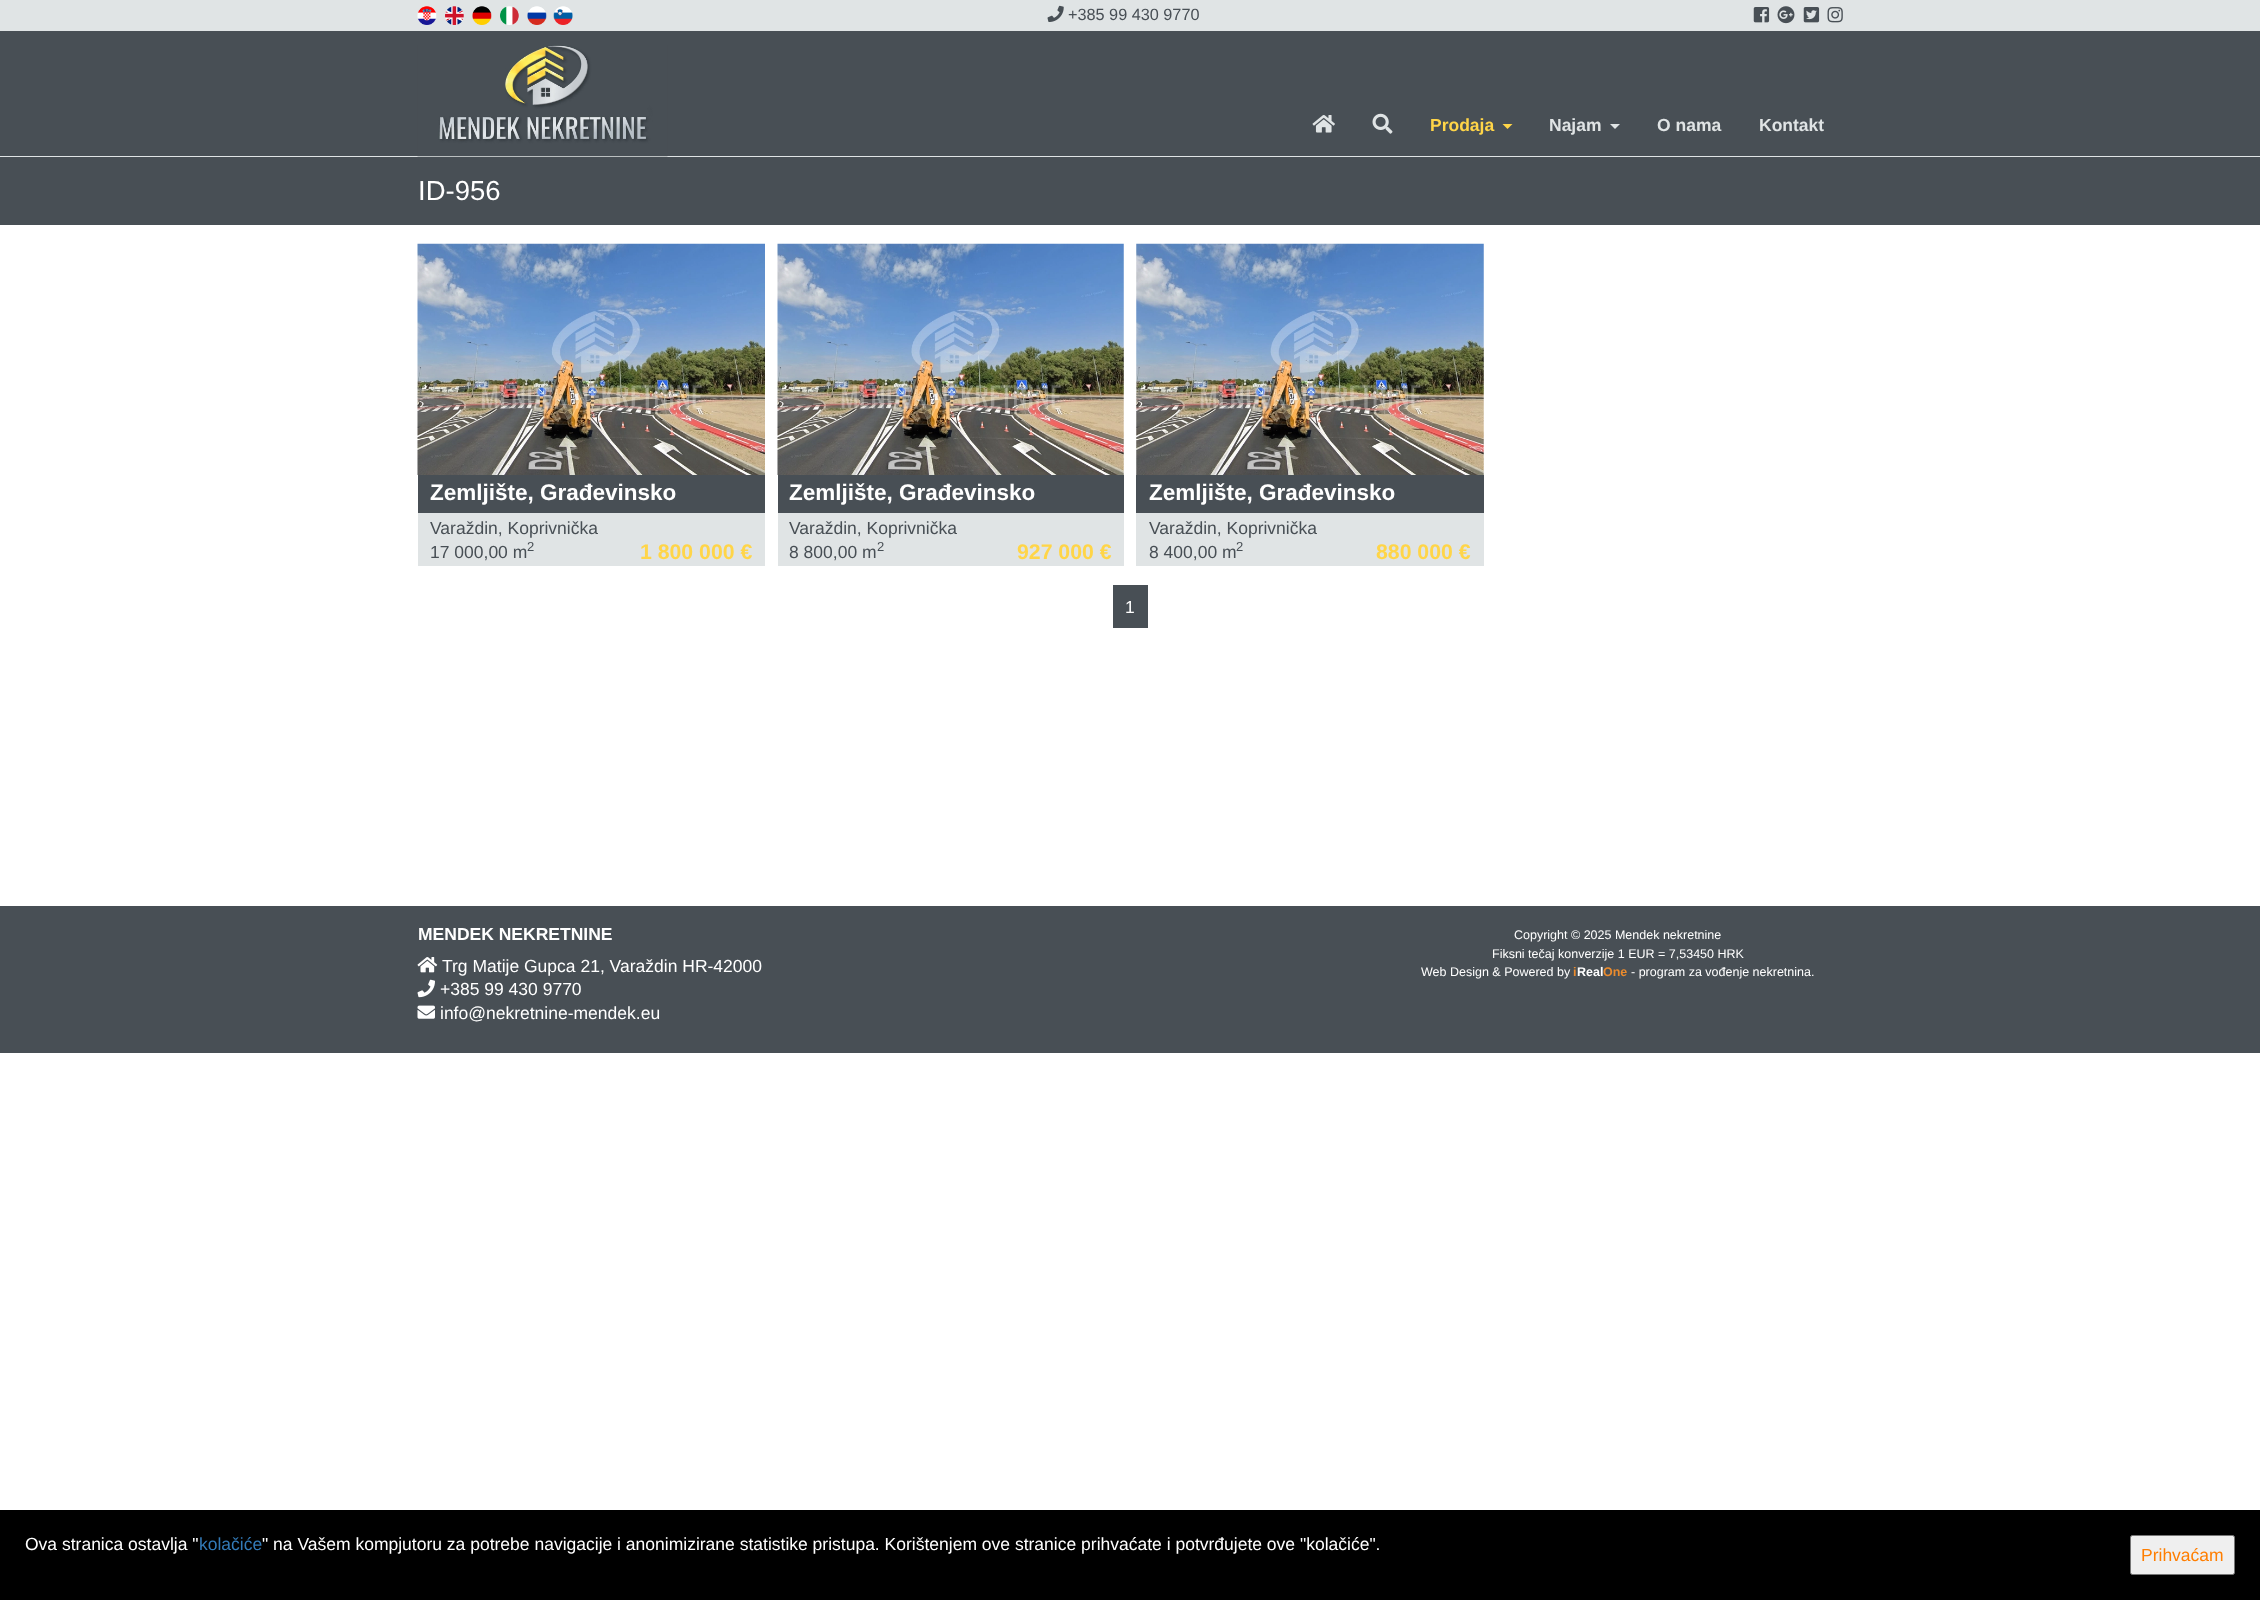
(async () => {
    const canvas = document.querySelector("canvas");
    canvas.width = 2260;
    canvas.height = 1600;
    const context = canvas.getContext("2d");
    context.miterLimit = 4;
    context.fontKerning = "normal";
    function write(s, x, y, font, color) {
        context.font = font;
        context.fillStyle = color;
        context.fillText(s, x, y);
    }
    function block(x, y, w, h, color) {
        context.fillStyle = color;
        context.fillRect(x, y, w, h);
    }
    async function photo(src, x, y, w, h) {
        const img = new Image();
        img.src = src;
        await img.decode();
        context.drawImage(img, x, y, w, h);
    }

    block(0, 0, 2260, 1600, "rgb(255, 255, 255)");
    block(0, 0, 2260, 31, "rgb(224, 228, 229)");
    await photo("media/1.png", 417, 6, 20, 19);
    await photo("media/2.png", 445, 6, 19, 19);
    await photo("media/3.png", 472, 6, 20, 19);
    await photo("media/4.png", 500, 6, 19, 19);
    await photo("media/5.png", 527, 6, 20, 19);
    await photo("media/6.png", 553, 6, 20, 19);
    await photo("media/7.png", 1047, 5, 17, 17);
    write("+385 99 430 9770", 1068, 20, "16.25px Liberation Sans", "rgb(72, 79, 85)");
    await photo("media/8.png", 1753, 7, 17, 16);
    await photo("media/9.png", 1777, 6, 18, 18);
    await photo("media/10.png", 1803, 7, 17, 16);
    await photo("media/11.png", 1827, 7, 16, 16);
    block(0, 31, 2260, 125, "rgb(72, 79, 85)");
    block(0, 156, 2260, 1, "rgb(224, 228, 229)");
    await photo("media/12.png", 417, 45, 251, 112);
    await photo("media/13.png", 1312, 115, 23, 18);
    await photo("media/14.png", 1372, 113, 21, 21);
    write("Prodaja", 1430, 131, "bold 17.5px Liberation Sans", "rgb(255, 213, 72)");
    context.beginPath();
    context.moveTo(1502.5, 124);
    context.lineTo(1512.5, 124);
    context.lineTo(1507.5, 129);
    context.closePath();
    context.fill();
    write("Najam", 1549, 131, "bold 17.5px Liberation Sans", "rgb(224, 228, 229)");
    context.beginPath();
    context.moveTo(1610, 124);
    context.lineTo(1620, 124);
    context.lineTo(1615, 129);
    context.closePath();
    context.fill();
    write("O nama", 1657, 131, "bold 17.5px Liberation Sans", "rgb(224, 228, 229)");
    write("Kontakt", 1759, 131, "bold 17.5px Liberation Sans", "rgb(224, 228, 229)");
    block(0, 157, 2260, 68, "rgb(72, 79, 85)");
    write("ID-956", 418, 200, "27.5px Liberation Sans", "rgb(255, 255, 255)");
    await photo("media/15.png", 417, 243, 348, 232);
    block(418, 513, 347, 53, "rgb(224, 228, 229)");
    block(418, 475, 347, 38, "rgb(72, 79, 85)");
    write("Zemljište, Građevinsko", 430, 500, "bold 22.5px Liberation Sans", "rgb(255, 255, 255)");
    write("Varaždin, Koprivnička", 430, 534, "17.5px Liberation Sans", "rgb(72, 79, 85)");
    write("17 000,00 m", 430, 558, "17.5px Liberation Sans", "rgb(72, 79, 85)");
    write("2", 527, 551, "13px Liberation Sans", "rgb(72, 79, 85)");
    write("1 800 000 €", 640, 559, "bold 21.25px Liberation Sans", "rgb(255, 213, 72)");
    await photo("media/16.png", 777, 243, 347, 232);
    block(778, 513, 346, 53, "rgb(224, 228, 229)");
    block(778, 475, 346, 38, "rgb(72, 79, 85)");
    write("Zemljište, Građevinsko", 789, 500, "bold 22.5px Liberation Sans", "rgb(255, 255, 255)");
    write("Varaždin, Koprivnička", 789, 534, "17.5px Liberation Sans", "rgb(72, 79, 85)");
    write("8 800,00 m", 789, 558, "17.5px Liberation Sans", "rgb(72, 79, 85)");
    write("2", 877, 551, "13px Liberation Sans", "rgb(72, 79, 85)");
    write("927 000 €", 1017, 559, "bold 21.25px Liberation Sans", "rgb(255, 213, 72)");
    await photo("media/17.png", 1136, 243, 348, 232);
    block(1136, 513, 348, 53, "rgb(224, 228, 229)");
    block(1136, 475, 348, 38, "rgb(72, 79, 85)");
    write("Zemljište, Građevinsko", 1149, 500, "bold 22.5px Liberation Sans", "rgb(255, 255, 255)");
    write("Varaždin, Koprivnička", 1149, 534, "17.5px Liberation Sans", "rgb(72, 79, 85)");
    write("8 400,00 m", 1149, 558, "17.5px Liberation Sans", "rgb(72, 79, 85)");
    write("2", 1236, 551, "13px Liberation Sans", "rgb(72, 79, 85)");
    write("880 000 €", 1376, 559, "bold 21.25px Liberation Sans", "rgb(255, 213, 72)");
    block(1113, 585, 35, 43, "rgb(72, 79, 85)");
    write("1", 1125, 613, "17.5px Liberation Sans", "rgb(255, 255, 255)");
    block(0, 906, 2260, 147, "rgb(72, 79, 85)");
    write("MENDEK NEKRETNINE", 418, 940, "bold 17.5px Liberation Sans", "rgb(255, 255, 255)");
    await photo("media/18.png", 417, 957, 21, 16);
    write("Trg Matije Gupca 21, Varaždin HR-42000", 442, 972, "17.5px Liberation Sans", "rgb(255, 255, 255)");
    await photo("media/19.png", 417, 979, 18, 19);
    write("+385 99 430 9770", 440, 995, "17.5px Liberation Sans", "rgb(255, 255, 255)");
    await photo("media/20.png", 417, 1005, 18, 14);
    write("info@nekretnine-mendek.eu", 440, 1019, "17.5px Liberation Sans", "rgb(255, 255, 255)");
    write("Copyright © 2025 Mendek nekretnine", 1514, 939, "12.5px Liberation Sans", "rgb(255, 255, 255)");
    write("Fiksni tečaj konverzije 1 EUR = 7,53450 HRK", 1492, 958, "12.5px Liberation Sans", "rgb(255, 255, 255)");
    write("Web Design & Powered by", 1421, 976, "12.5px Liberation Sans", "rgb(255, 255, 255)");
    write("i", 1573, 976, "bold 12.5px Liberation Sans", "rgb(235, 139, 45)");
    write("Real", 1577, 976, "bold 12.5px Liberation Sans", "rgb(255, 255, 255)");
    write("One", 1603, 976, "bold 12.5px Liberation Sans", "rgb(235, 139, 45)");
    write("- program za vođenje nekretnina.", 1631, 976, "12.5px Liberation Sans", "rgb(255, 255, 255)");
    block(0, 1510, 2260, 90, "rgb(0, 0, 0)");
    write("Ova stranica ostavlja \"", 25, 1550, "17.5px Liberation Sans", "rgb(255, 255, 255)");
    write("kolačiće", 199, 1550, "17.5px Liberation Sans", "rgb(51, 122, 183)");
    write("\" na Vašem kompjutoru za potrebe navigacije i anonimizirane statistike pristupa. Korištenjem ove stranice prihvaćate i potvrđujete ove \"kolačiće\".", 262, 1550, "17.5px Liberation Sans", "rgb(255, 255, 255)");
    context.fillStyle = "rgb(239, 239, 239)";
    context.beginPath();
    context.roundRect(2130.5, 1535.5, 104, 39, 2);
    context.fill();
    context.strokeStyle = "rgb(118, 118, 118)";
    context.stroke();
    write("Prihvaćam", 2141, 1561, "17.5px Liberation Sans", "rgb(255, 126, 0)");
})();
